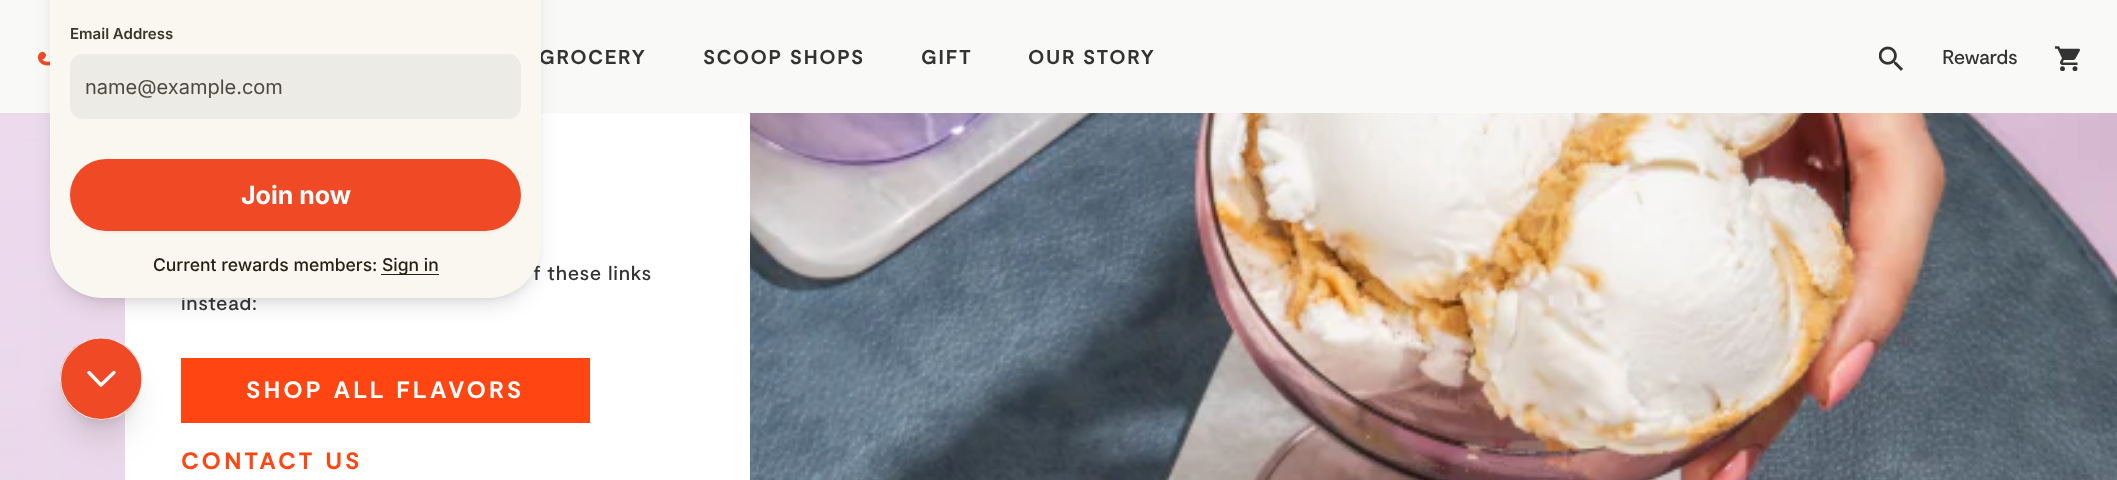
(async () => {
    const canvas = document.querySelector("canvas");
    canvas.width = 2117;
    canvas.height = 480;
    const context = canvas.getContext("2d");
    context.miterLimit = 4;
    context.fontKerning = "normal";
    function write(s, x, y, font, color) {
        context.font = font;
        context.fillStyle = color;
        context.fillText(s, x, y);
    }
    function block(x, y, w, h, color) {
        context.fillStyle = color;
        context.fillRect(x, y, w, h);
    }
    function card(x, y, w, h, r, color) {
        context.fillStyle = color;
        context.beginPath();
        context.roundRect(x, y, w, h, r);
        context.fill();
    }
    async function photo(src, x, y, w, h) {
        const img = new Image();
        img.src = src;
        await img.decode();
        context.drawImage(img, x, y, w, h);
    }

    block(0, 0, 2117, 480, "rgb(255, 255, 255)");
    block(0, 0, 2117, 113, "rgb(249, 249, 247)");
    await photo("media/1.png", 37, 51, 13, 15);
    await photo("media/4.png", 0, 113, 2117, 367);
    block(125, 113, 625, 367, "rgb(255, 255, 255)");
    context.fillStyle = "rgba(0, 0, 0, 0.1)";
    context.filter = "blur(4px)";
    context.beginPath();
    context.roundRect(55, -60, 481, 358, 48);
    context.fill();
    context.filter = "none";
    context.filter = "blur(9.5px)";
    context.beginPath();
    context.roundRect(54, -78, 484, 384, 49);
    context.fill();
    context.filter = "none";
    context.letterSpacing = "1.6px";
    write("GROCERY", 539, 64, "bold 20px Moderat", "rgb(51, 51, 51)");
    context.letterSpacing = "0.75px";
    write("f these links", 533, 280, "500 20px Moderat", "rgb(51, 51, 51)");
    write("instead:", 181, 310, "500 20px Moderat", "rgb(51, 51, 51)");
    card(50, -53, 491, 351, 53, "rgb(249, 247, 239)");
    context.letterSpacing = "0px";
    write("Email Address", 70, 39, "600 15px Inter", "rgb(59, 54, 43)");
    card(70, 54, 451, 65, 13, "rgba(207, 207, 207, 0.3)");
    write("name@example.com", 85, 94, "20px Inter", "rgb(78, 73, 63)");
    context.fillStyle = "rgba(0, 0, 0, 0.05)";
    context.filter = "blur(1px)";
    context.beginPath();
    context.roundRect(70, 160, 451, 73, 36.5);
    context.fill();
    context.filter = "none";
    card(70, 159, 451, 72, 36, "rgb(239, 74, 37)");
    write("Join now", 241, 204, "bold 25px Inter", "rgb(255, 255, 255)");
    write("Current rewards members:", 153, 271, "500 17.5px Inter", "rgb(38, 32, 21)");
    block(381, 274, 58, 1, "rgb(38, 32, 21)");
    write("Sign in", 382, 271, "500 17.5px Inter", "rgb(38, 32, 21)");
    context.fillStyle = "rgba(0, 0, 0, 0.1)";
    context.filter = "blur(6px)";
    context.beginPath();
    context.roundRect(68, 355, 67, 68, 33.5);
    context.fill();
    context.filter = "none";
    block(181, 358, 409, 65, "rgb(255, 70, 18)");
    context.fillStyle = "rgba(0, 0, 0, 0.1)";
    context.filter = "blur(15.5px)";
    context.beginPath();
    context.roundRect(66, 369, 70, 70, 35);
    context.fill();
    context.filter = "none";
    card(60, 338, 83, 82, 41, "rgb(249, 247, 239)");
    context.fillStyle = "rgb(239, 74, 37)";
    context.beginPath();
    context.moveTo(101, 420);
    context.bezierCurveTo(78, 420, 60, 402, 60, 379);
    context.bezierCurveTo(60, 356, 78, 338, 101, 338);
    context.bezierCurveTo(124, 338, 142, 356, 142, 379);
    context.bezierCurveTo(142, 402, 124, 420, 101, 420);
    context.closePath();
    context.fill();
    context.beginPath();
    context.moveTo(101, 419.5);
    context.bezierCurveTo(79, 419.5, 60.5, 401, 60.5, 379);
    context.bezierCurveTo(60.5, 356.5, 79, 338, 101, 338);
    context.bezierCurveTo(123.5, 338, 142, 356.5, 142, 379);
    context.bezierCurveTo(142, 401, 123.5, 419.5, 101, 419.5);
    context.closePath();
    context.strokeStyle = "rgb(229, 231, 235)";
    context.lineWidth = 1.2;
    context.stroke();
    context.beginPath();
    context.moveTo(114, 372.5);
    context.lineTo(101, 385);
    context.lineTo(89, 372.5);
    context.strokeStyle = "rgb(255, 255, 255)";
    context.lineWidth = 3.3;
    context.lineCap = "round";
    context.lineJoin = "round";
    context.stroke();
    context.letterSpacing = "1.6px";
    write("SCOOP SHOPS", 703, 64, "bold 20px Moderat", "rgb(51, 51, 51)");
    write("GIFT", 921, 64, "bold 20px Moderat", "rgb(51, 51, 51)");
    write("OUR STORY", 1028, 64, "bold 20px Moderat", "rgb(51, 51, 51)");
    await photo("media/2.png", 1879, 46, 24, 25);
    context.letterSpacing = "-0.25px";
    write("Rewards", 1942, 64, "500 20px Moderat", "rgb(51, 51, 51)");
    await photo("media/3.png", 2055, 46, 25, 25);
    context.letterSpacing = "3.1px";
    write("SHOP ALL FLAVORS", 246, 398, "bold 23.75px Moderat", "rgb(255, 255, 255)");
    write("CONTACT US", 181, 469, "bold 23.75px Moderat", "rgb(255, 70, 18)");
})();
